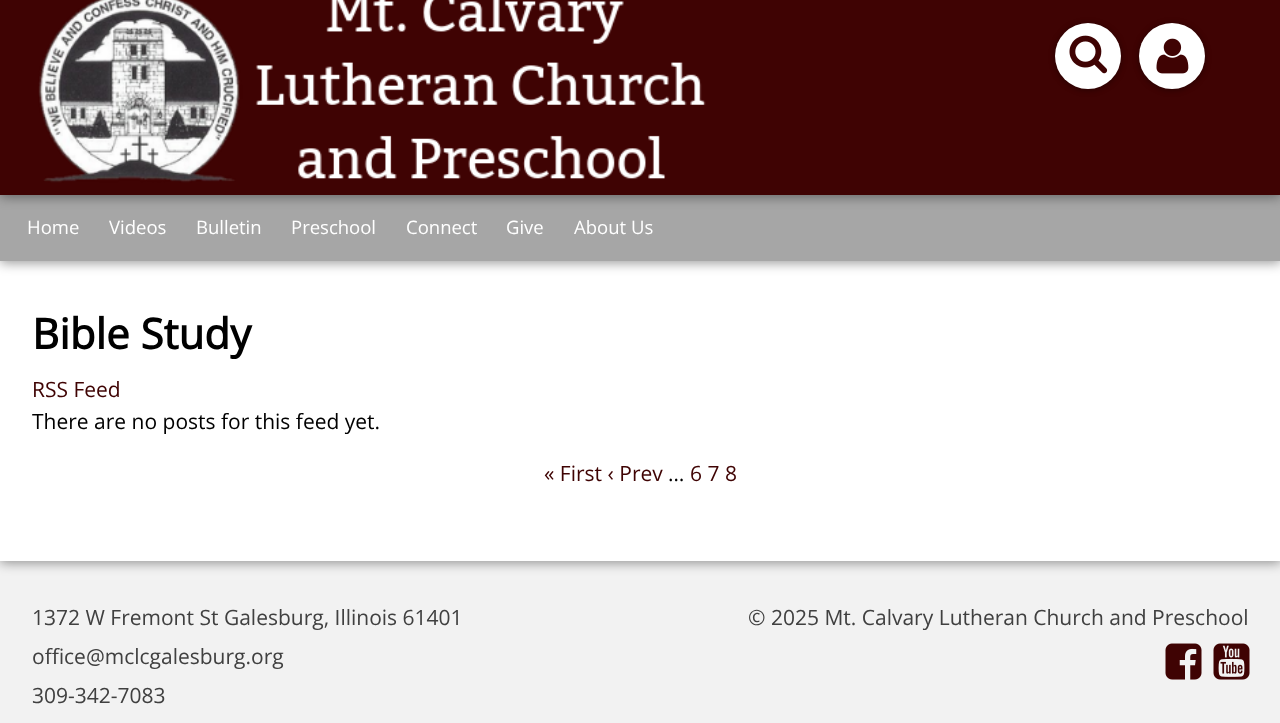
(async () => {
    const canvas = document.querySelector("canvas");
    canvas.width = 1280;
    canvas.height = 723;
    const context = canvas.getContext("2d");
    context.miterLimit = 4;
    context.fontKerning = "normal";
    function write(s, x, y, font, color) {
        context.font = font;
        context.fillStyle = color;
        context.fillText(s, x, y);
    }
    function block(x, y, w, h, color) {
        context.fillStyle = color;
        context.fillRect(x, y, w, h);
    }
    async function photo(src, x, y, w, h) {
        const img = new Image();
        img.src = src;
        await img.decode();
        context.drawImage(img, x, y, w, h);
    }

    block(0, 0, 1280, 723, "rgb(242, 242, 242)");
    context.fillStyle = "rgba(0, 0, 0, 0.4)";
    context.filter = "blur(6px)";
    context.beginPath();
    context.rect(0, 263, 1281, 300);
    context.fill();
    context.filter = "none";
    block(0, 261, 1280, 300, "rgb(255, 255, 255)");
    context.fillStyle = "rgba(0, 0, 0, 0.4)";
    context.filter = "blur(6px)";
    context.beginPath();
    context.rect(0, 197, 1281, 66);
    context.fill();
    context.filter = "none";
    block(0, 195, 1280, 66, "rgb(166, 166, 166)");
    context.fillStyle = "rgba(0, 0, 0, 0.4)";
    context.filter = "blur(6px)";
    context.beginPath();
    context.rect(0, -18, 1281, 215);
    context.fill();
    context.filter = "none";
    block(0, 0, 1280, 195, "rgb(63, 3, 3)");
    await photo("media/1.png", 38, 0, 668, 183);
    context.fillStyle = "rgba(0, 0, 0, 0.4)";
    context.filter = "blur(3px)";
    context.beginPath();
    context.roundRect(1055, 24, 66, 66, 33);
    context.fill();
    context.filter = "none";
    context.fillStyle = "rgb(255, 255, 255)";
    context.beginPath();
    context.arc(1088, 56, 33, 0, Math.PI * 2);
    context.fill();
    await photo("media/2.png", 1069, 35, 39, 39);
    context.fillStyle = "rgba(0, 0, 0, 0.4)";
    context.filter = "blur(3px)";
    context.beginPath();
    context.roundRect(1139, 24, 66, 66, 33);
    context.fill();
    context.filter = "none";
    context.fillStyle = "rgb(255, 255, 255)";
    context.beginPath();
    context.arc(1172, 56, 33, 0, Math.PI * 2);
    context.fill();
    await photo("media/3.png", 1156, 38, 33, 36);
    write("Home", 27, 234, "18.5px Open Sans", "rgb(255, 255, 255)");
    write("Videos", 109, 234, "18.5px Open Sans", "rgb(255, 255, 255)");
    write("Bulletin", 196, 234, "18.5px Open Sans", "rgb(255, 255, 255)");
    write("Preschool", 291, 234, "18.5px Open Sans", "rgb(255, 255, 255)");
    write("Connect", 406, 234, "18.5px Open Sans", "rgb(255, 255, 255)");
    write("Give", 506, 234, "18.5px Open Sans", "rgb(255, 255, 255)");
    write("About Us", 574, 234, "18.5px Open Sans", "rgb(255, 255, 255)");
    write("Bible Study", 32, 349, "bold 42px Open Sans", "rgb(0, 0, 0)");
    write("RSS Feed", 32, 397, "21px Open Sans", "rgb(63, 3, 3)");
    write("There are no posts for this feed yet.", 32, 429, "21px Open Sans", "rgb(0, 0, 0)");
    write("« First ‹ Prev", 544, 481, "21px Open Sans", "rgb(63, 3, 3)");
    write("…", 668, 481, "21px Open Sans", "rgb(0, 0, 0)");
    write("6 7 8", 690, 481, "21px Open Sans", "rgb(63, 3, 3)");
    write("1372 W Fremont St Galesburg, Illinois 61401", 32, 625, "21px Open Sans", "rgb(64, 64, 64)");
    write("office@mclcgalesburg.org", 32, 664, "21px Open Sans", "rgb(64, 64, 64)");
    write("309-342-7083", 32, 703, "21px Open Sans", "rgb(64, 64, 64)");
    write("© 2025 Mt. Calvary Lutheran Church and Preschool", 748, 625, "21px Open Sans", "rgb(64, 64, 64)");
    await photo("media/4.png", 1165, 643, 37, 37);
    await photo("media/5.png", 1213, 643, 37, 37);
})();
